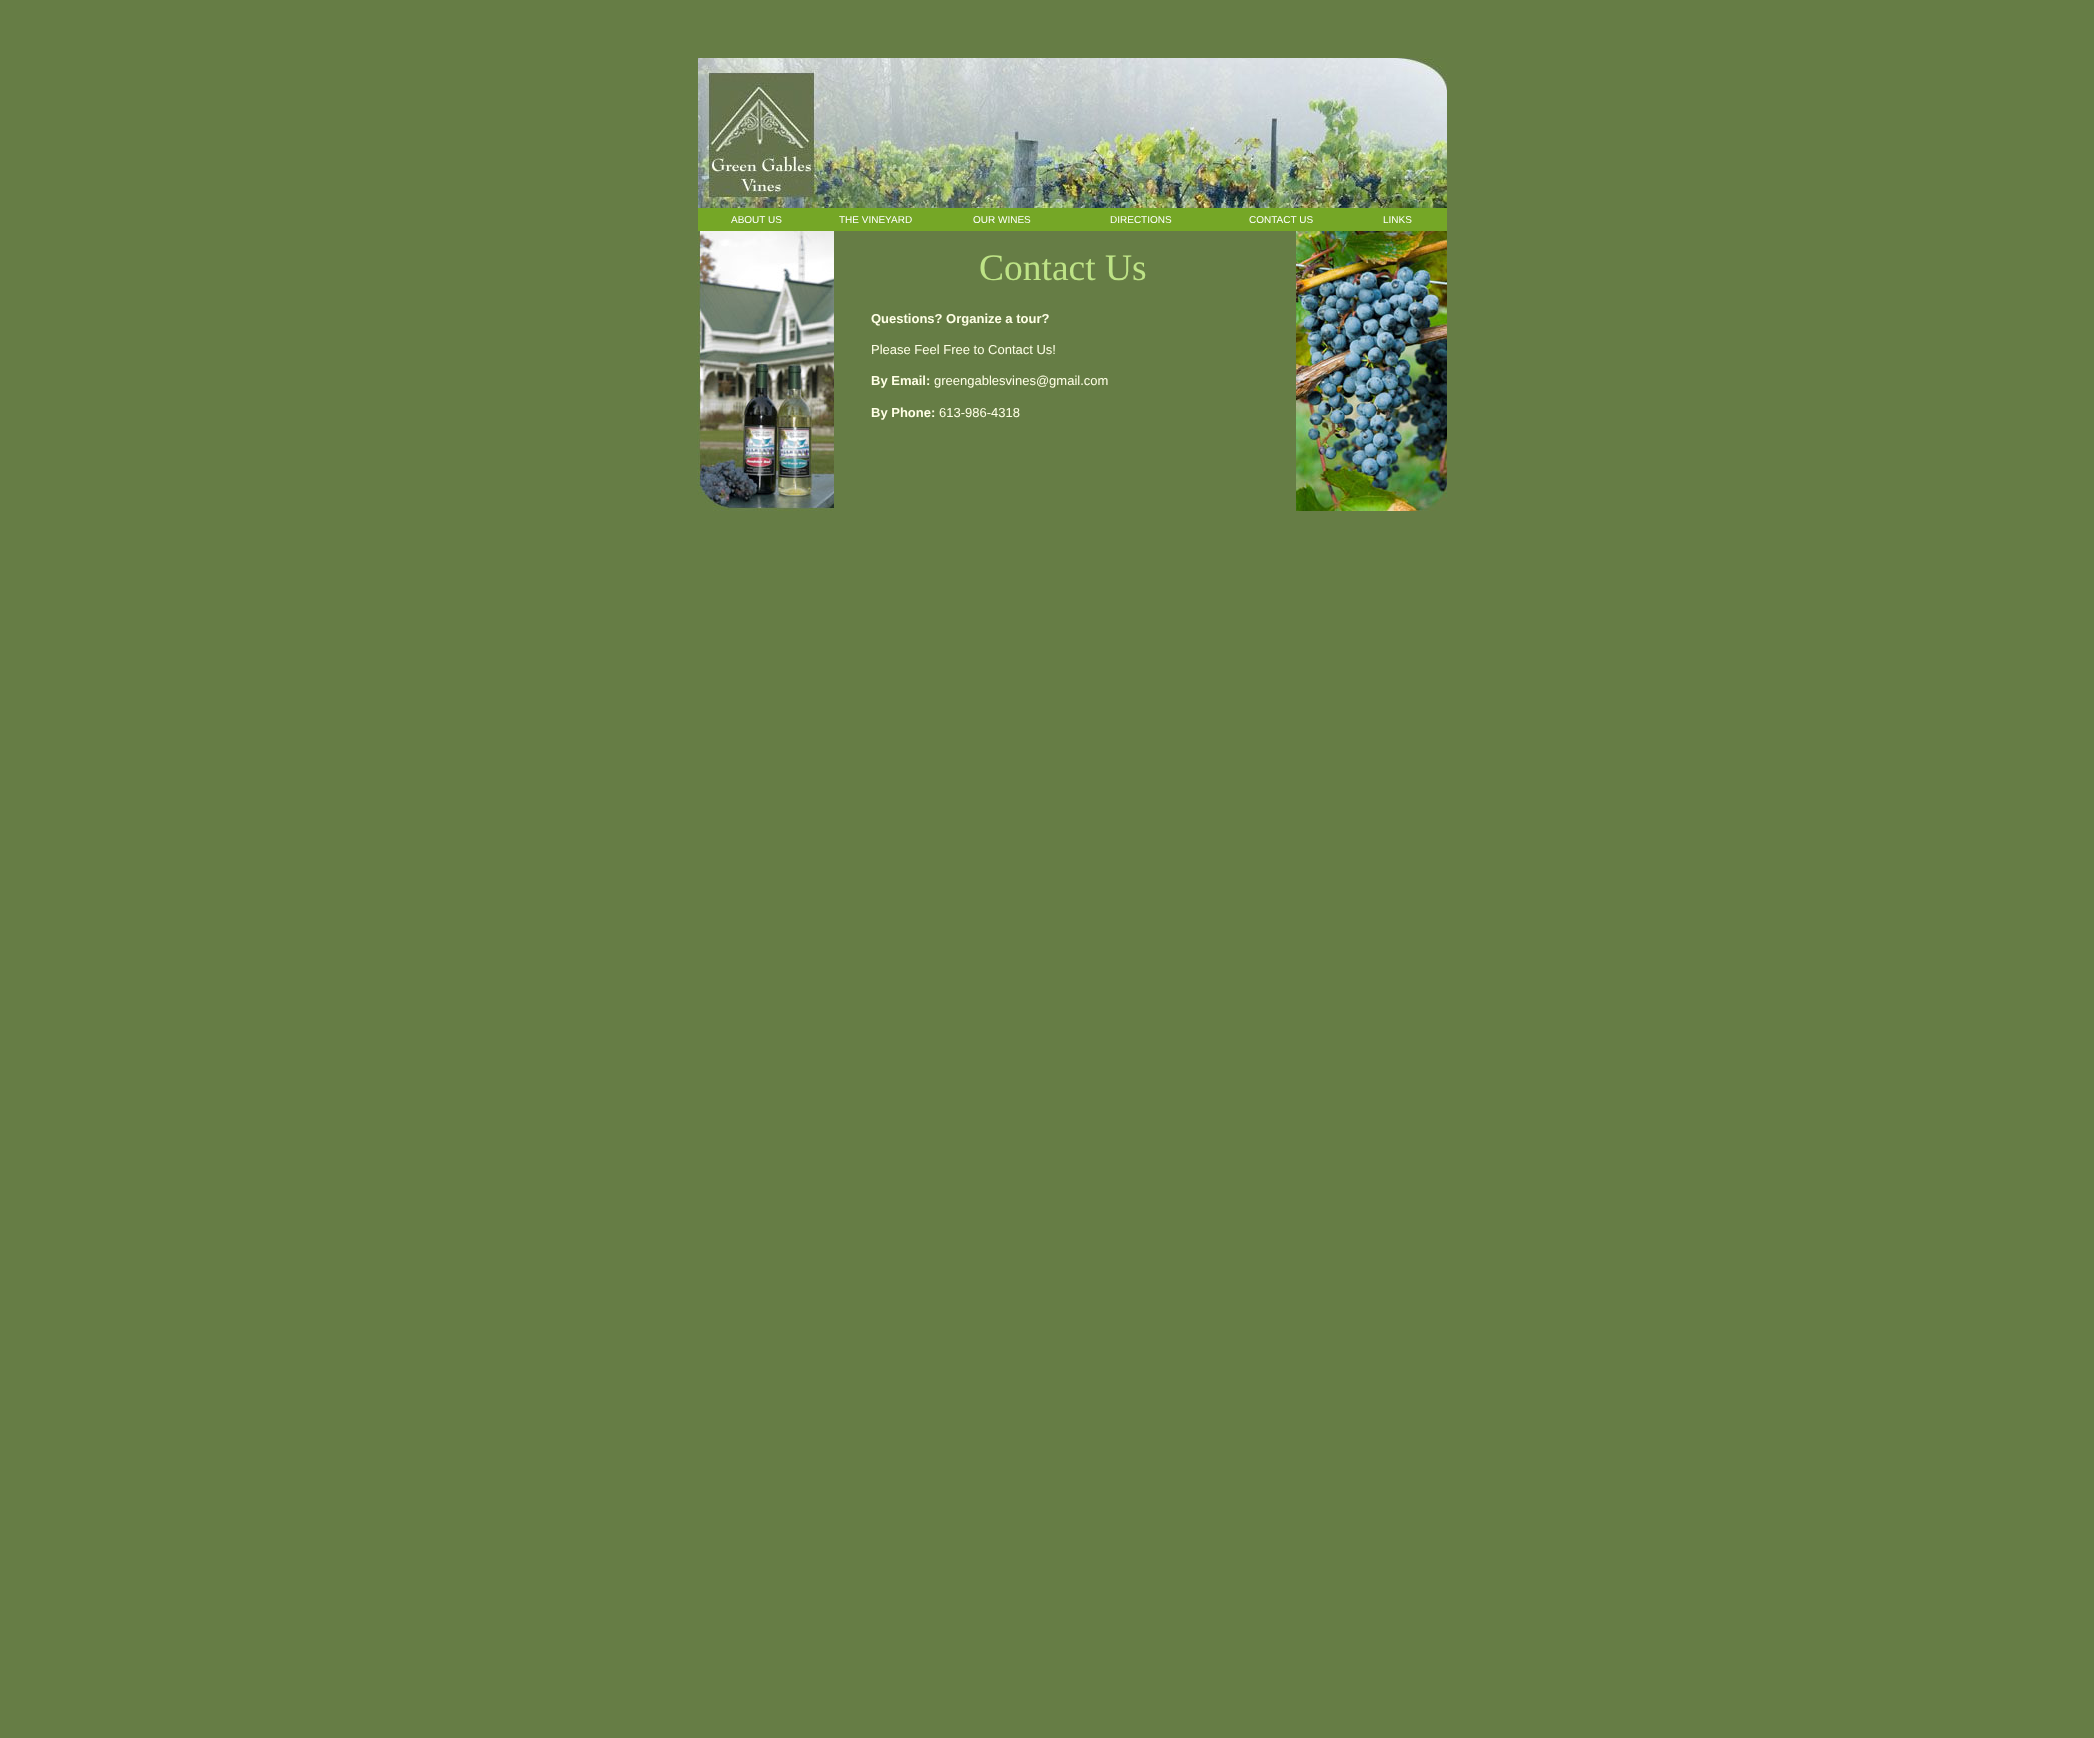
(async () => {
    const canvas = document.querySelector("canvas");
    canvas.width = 2094;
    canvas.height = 1738;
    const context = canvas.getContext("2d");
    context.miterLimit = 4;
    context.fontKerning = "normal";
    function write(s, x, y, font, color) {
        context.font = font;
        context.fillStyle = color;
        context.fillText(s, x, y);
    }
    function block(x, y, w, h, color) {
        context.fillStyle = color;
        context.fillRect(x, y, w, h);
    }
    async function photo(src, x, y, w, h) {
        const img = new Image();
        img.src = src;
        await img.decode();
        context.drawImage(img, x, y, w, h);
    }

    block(0, 0, 2094, 1738, "rgb(102, 125, 69)");
    await photo("media/1.png", 698, 58, 749, 150);
    block(698, 208, 749, 23, "rgb(117, 167, 38)");
    write("ABOUT US", 731, 223, "10px Liberation Sans", "rgb(255, 255, 255)");
    write("THE VINEYARD", 839, 223, "10px Liberation Sans", "rgb(255, 255, 255)");
    write("OUR WINES", 973, 223, "10px Liberation Sans", "rgb(255, 255, 255)");
    write("DIRECTIONS", 1110, 223, "10px Liberation Sans", "rgb(255, 255, 255)");
    write("CONTACT US", 1249, 223, "10px Liberation Sans", "rgb(255, 255, 255)");
    write("LINKS", 1383, 223, "10px Liberation Sans", "rgb(255, 255, 255)");
    await photo("media/2.png", 697, 231, 137, 280);
    write("Contact Us", 979, 280, "37.5px Liberation Serif", "rgb(190, 227, 134)");
    write("Questions? Organize a tour?", 871, 323, "bold 13px Liberation Sans", "rgb(255, 255, 230)");
    write("Please Feel Free to Contact Us!", 871, 354, "13px Liberation Sans", "rgb(255, 255, 230)");
    write("By Email:", 871, 385, "bold 13px Liberation Sans", "rgb(255, 255, 230)");
    write("greengablesvines@gmail.com", 934, 385, "13px Liberation Sans", "rgb(255, 255, 230)");
    write("By Phone:", 871, 417, "bold 13px Liberation Sans", "rgb(255, 255, 230)");
    write("613-986-4318", 939, 417, "13px Liberation Sans", "rgb(255, 255, 230)");
    await photo("media/3.png", 1296, 231, 151, 280);
})();
